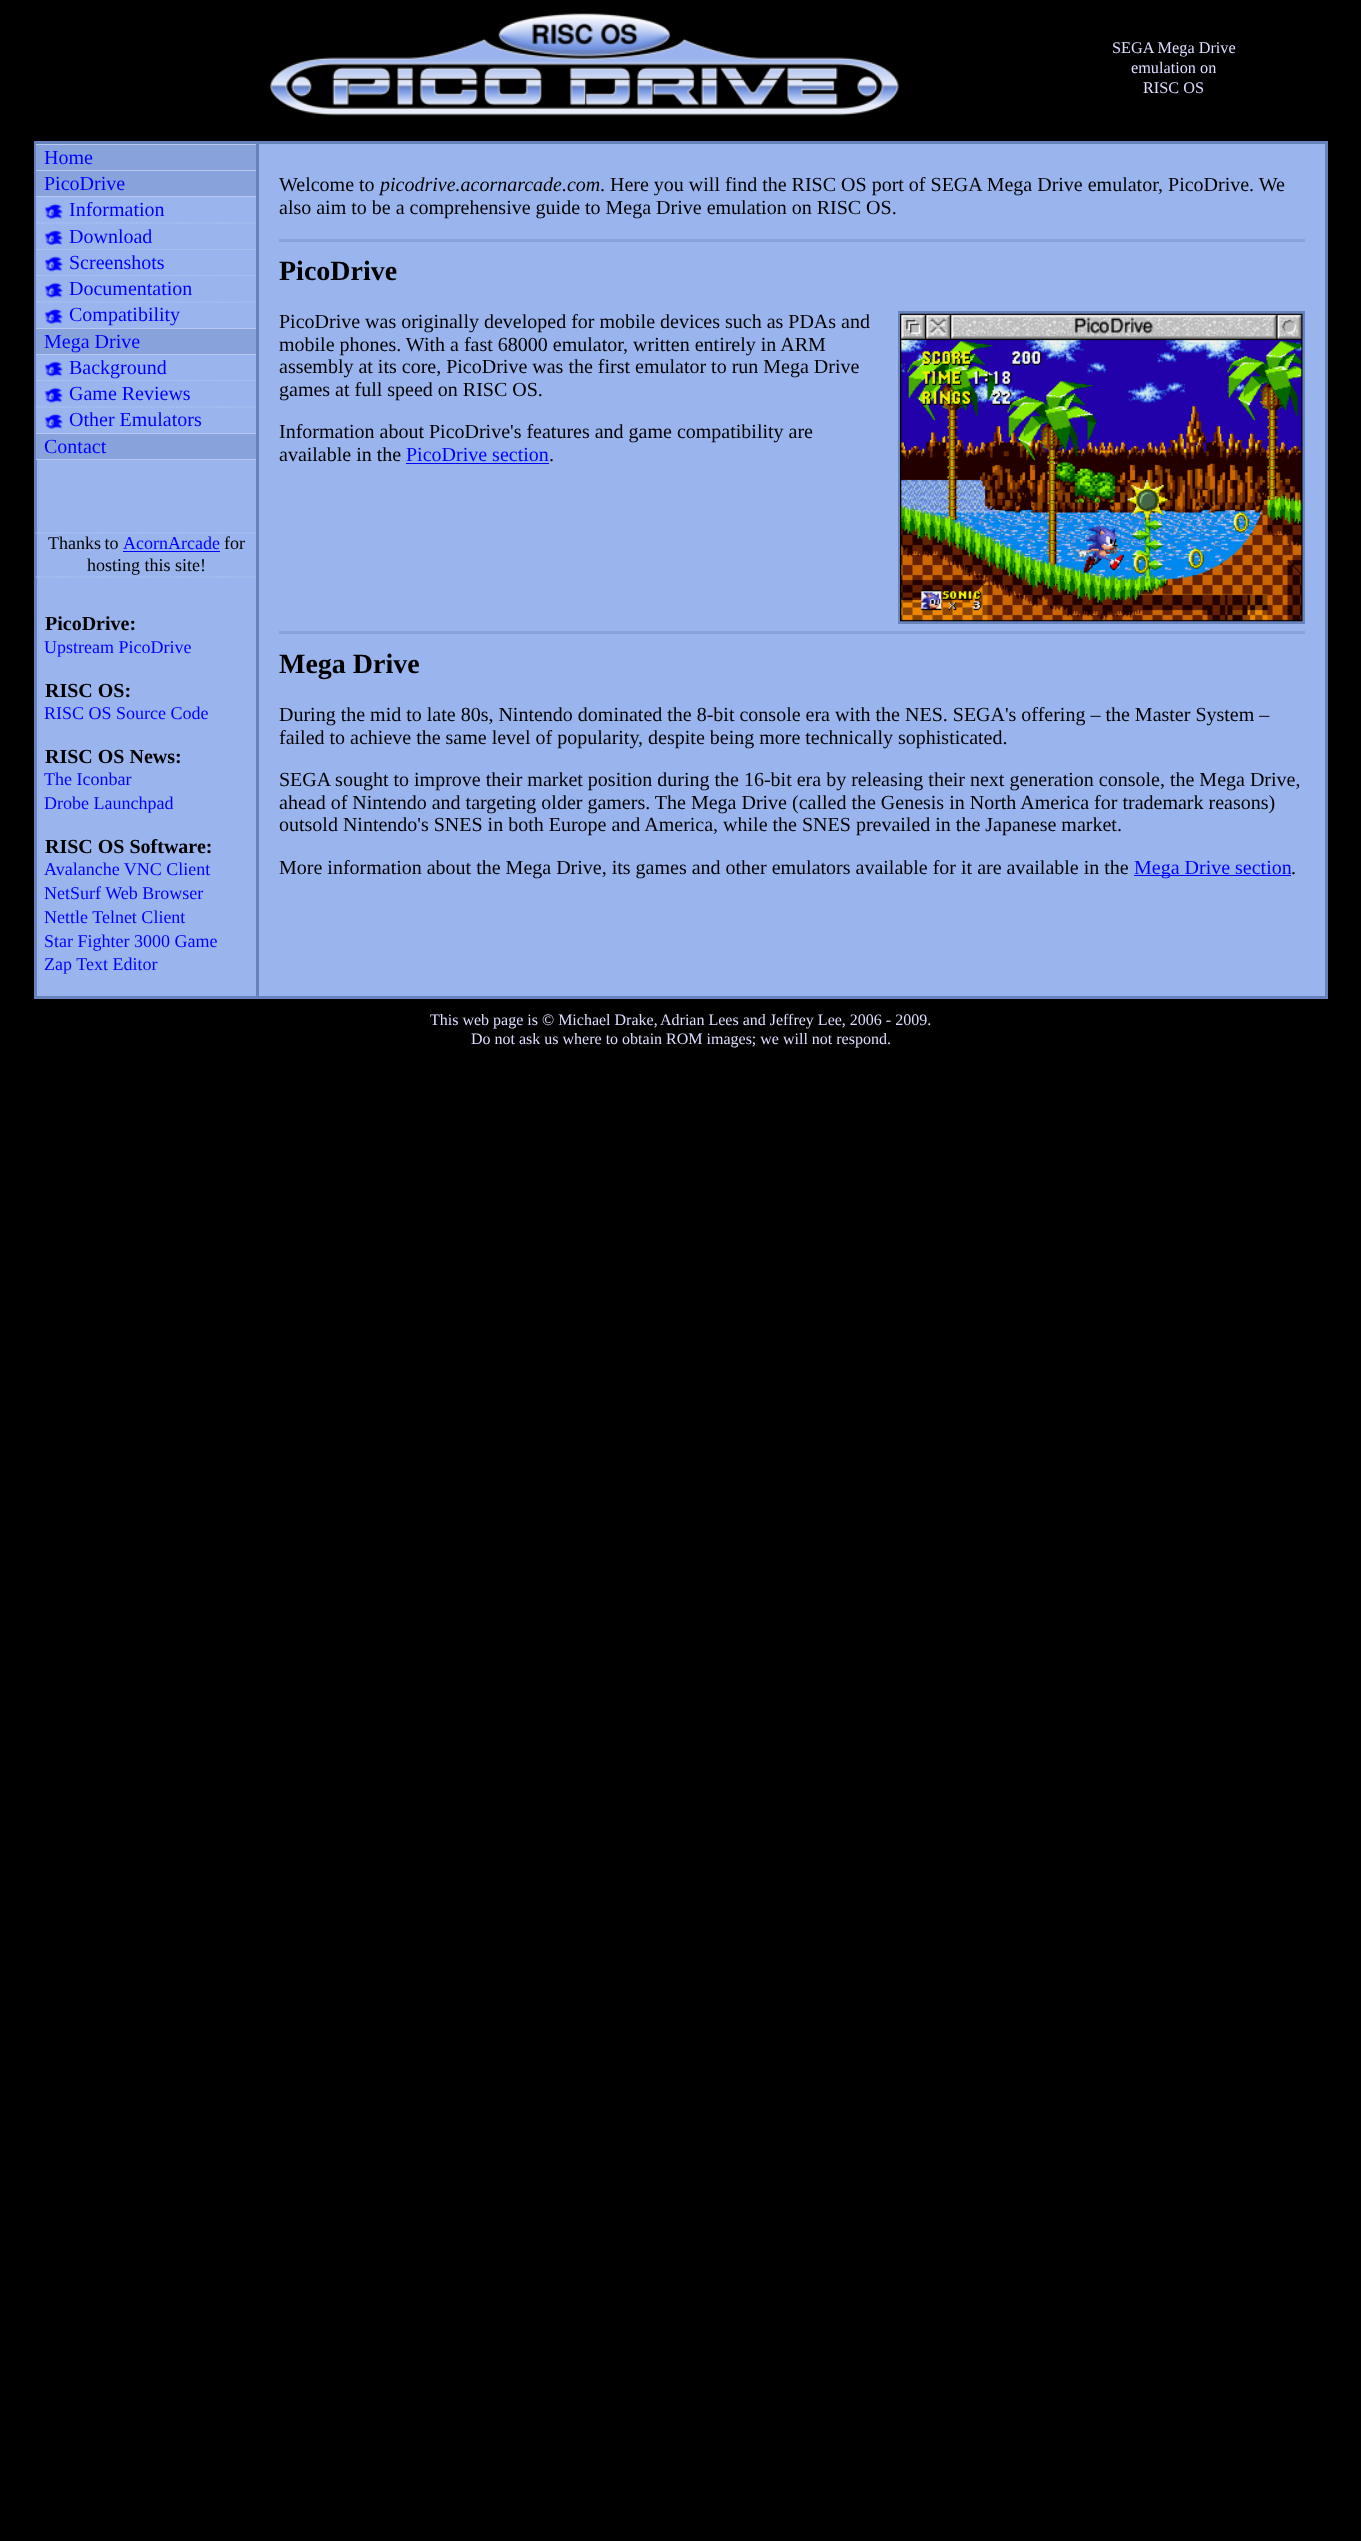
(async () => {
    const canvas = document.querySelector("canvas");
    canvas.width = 1361;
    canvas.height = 2541;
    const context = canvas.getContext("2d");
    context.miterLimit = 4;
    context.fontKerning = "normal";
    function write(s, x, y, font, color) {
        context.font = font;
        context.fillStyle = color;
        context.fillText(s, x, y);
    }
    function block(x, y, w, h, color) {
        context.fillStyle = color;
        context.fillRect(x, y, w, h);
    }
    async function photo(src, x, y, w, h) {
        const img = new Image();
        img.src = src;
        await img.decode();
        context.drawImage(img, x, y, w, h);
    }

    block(0, 0, 1361, 2541, "rgb(0, 0, 0)");
    await photo("media/1.png", 269, 13, 630, 103);
    write("SEGA Mega Drive", 1112, 53, "16.25px Liberation Serif", "rgb(221, 221, 255)");
    write("emulation on", 1131, 73, "16.25px Liberation Serif", "rgb(221, 221, 255)");
    write("RISC OS", 1143, 93, "16.25px Liberation Serif", "rgb(221, 221, 255)");
    block(37, 460, 219, 536, "rgb(154, 180, 238)");
    block(34, 141, 222, 3, "rgb(104, 130, 188)");
    block(34, 996, 222, 3, "rgb(104, 130, 188)");
    block(34, 141, 3, 858, "rgb(104, 130, 188)");
    block(36, 145, 220, 25, "rgb(136, 162, 220)");
    block(36, 144, 220, 1, "rgb(184, 202, 243)");
    block(36, 170, 220, 1, "rgb(184, 202, 243)");
    write("Home", 44, 164, "20px Liberation Serif", "rgb(0, 0, 255)");
    block(36, 171, 220, 25, "rgb(136, 162, 220)");
    block(36, 328, 220, 1, "rgb(184, 202, 243)");
    write("PicoDrive", 44, 190, "20px Liberation Serif", "rgb(0, 0, 255)");
    block(36, 197, 220, 131, "rgb(154, 180, 238)");
    block(36, 196, 220, 1, "rgb(184, 202, 243)");
    await photo("media/2.png", 44, 203, 19, 16);
    write("Information", 69, 216, "20px Liberation Serif", "rgb(0, 0, 255)");
    context.beginPath();
    context.moveTo(36, 223);
    context.lineTo(256, 223);
    context.strokeStyle = "rgb(184, 202, 243)";
    context.lineWidth = 1.2;
    context.setLineDash([1.25, 1.25]);
    context.stroke();
    await photo("media/3.png", 44, 230, 19, 15);
    write("Download", 69, 243, "20px Liberation Serif", "rgb(0, 0, 255)");
    context.beginPath();
    context.moveTo(36, 249.5);
    context.lineTo(256, 249.5);
    context.stroke();
    await photo("media/4.png", 44, 256, 19, 16);
    write("Screenshots", 69, 269, "20px Liberation Serif", "rgb(0, 0, 255)");
    context.beginPath();
    context.moveTo(36, 275.5);
    context.lineTo(256, 275.5);
    context.stroke();
    await photo("media/5.png", 44, 282, 19, 16);
    write("Documentation", 69, 295, "20px Liberation Serif", "rgb(0, 0, 255)");
    context.beginPath();
    context.moveTo(36, 302);
    context.lineTo(256, 302);
    context.stroke();
    await photo("media/2.png", 44, 308, 19, 16);
    write("Compatibility", 69, 321, "20px Liberation Serif", "rgb(0, 0, 255)");
    block(36, 329, 220, 25, "rgb(136, 162, 220)");
    block(36, 433, 220, 1, "rgb(184, 202, 243)");
    write("Mega Drive", 44, 348, "20px Liberation Serif", "rgb(0, 0, 255)");
    block(36, 355, 220, 78, "rgb(154, 180, 238)");
    block(36, 354, 220, 1, "rgb(184, 202, 243)");
    await photo("media/4.png", 44, 361, 19, 16);
    write("Background", 69, 374, "20px Liberation Serif", "rgb(0, 0, 255)");
    context.beginPath();
    context.moveTo(36, 380.5);
    context.lineTo(256, 380.5);
    context.stroke();
    await photo("media/5.png", 44, 387, 19, 16);
    write("Game Reviews", 69, 400, "20px Liberation Serif", "rgb(0, 0, 255)");
    context.beginPath();
    context.moveTo(36, 407);
    context.lineTo(256, 407);
    context.stroke();
    await photo("media/2.png", 44, 413, 19, 16);
    write("Other Emulators", 69, 426, "20px Liberation Serif", "rgb(0, 0, 255)");
    block(36, 434, 220, 25, "rgb(136, 162, 220)");
    block(36, 459, 220, 1, "rgb(184, 202, 243)");
    write("Contact", 44, 453, "20px Liberation Serif", "rgb(0, 0, 255)");
    context.beginPath();
    context.moveTo(36, 533);
    context.lineTo(256, 533);
    context.stroke();
    context.beginPath();
    context.moveTo(36, 577);
    context.lineTo(256, 577);
    context.stroke();
    context.wordSpacing = "-1px";
    write("Thanks to", 48, 549, "18px Liberation Serif", "rgb(0, 0, 0)");
    context.wordSpacing = "0px";
    write("AcornArcade", 123, 549, "18px Liberation Serif", "rgb(0, 0, 255)");
    block(123, 551, 97, 1, "rgb(0, 0, 255)");
    write("for", 224, 549, "18px Liberation Serif", "rgb(0, 0, 0)");
    write("hosting this site!", 87, 571, "18px Liberation Serif", "rgb(0, 0, 0)");
    write("PicoDrive:", 45, 630, "bold 20px Liberation Serif", "rgb(0, 0, 0)");
    write("Upstream PicoDrive", 44, 653, "18px Liberation Serif", "rgb(0, 0, 255)");
    write("RISC OS:", 45, 697, "bold 20px Liberation Serif", "rgb(0, 0, 0)");
    write("RISC OS Source Code", 44, 719, "18px Liberation Serif", "rgb(0, 0, 255)");
    write("RISC OS News:", 45, 763, "bold 20px Liberation Serif", "rgb(0, 0, 0)");
    write("The Iconbar", 44, 785, "18px Liberation Serif", "rgb(0, 0, 255)");
    write("Drobe Launchpad", 44, 809, "18px Liberation Serif", "rgb(0, 0, 255)");
    write("RISC OS Software:", 45, 853, "bold 20px Liberation Serif", "rgb(0, 0, 0)");
    write("Avalanche VNC Client", 44, 875, "18px Liberation Serif", "rgb(0, 0, 255)");
    write("NetSurf Web Browser", 44, 899, "18px Liberation Serif", "rgb(0, 0, 255)");
    write("Nettle Telnet Client", 44, 923, "18px Liberation Serif", "rgb(0, 0, 255)");
    write("Star Fighter 3000 Game", 44, 947, "18px Liberation Serif", "rgb(0, 0, 255)");
    write("Zap Text Editor", 44, 970, "18px Liberation Serif", "rgb(0, 0, 255)");
    context.fillStyle = "rgb(154, 180, 238)";
    context.beginPath();
    context.rect(257.5, 142.5, 1069, 855);
    context.fill();
    context.strokeStyle = "rgb(104, 130, 188)";
    context.lineWidth = 3;
    context.setLineDash([]);
    context.stroke();
    write("Welcome to", 279, 191, "20px Liberation Serif", "rgb(0, 0, 0)");
    write("picodrive.acornarcade.com", 380, 191, "italic 20px Liberation Serif", "rgb(0, 0, 0)");
    write(". Here you will find the RISC OS port of SEGA Mega Drive emulator, PicoDrive. We", 600, 191, "20px Liberation Serif", "rgb(0, 0, 0)");
    write("also aim to be a comprehensive guide to Mega Drive emulation on RISC OS.", 279, 214, "20px Liberation Serif", "rgb(0, 0, 0)");
    block(279, 239, 1026, 3, "rgb(136, 162, 220)");
    write("PicoDrive", 279, 280, "bold 28px Liberation Serif", "rgb(0, 0, 0)");
    write("PicoDrive was originally developed for mobile devices such as PDAs and", 279, 328, "20px Liberation Serif", "rgb(0, 0, 0)");
    context.strokeRect(899.5, 312.5, 404, 310);
    await photo("media/6.png", 900, 313, 403, 309);
    write("mobile phones. With a fast 68000 emulator, written entirely in ARM", 279, 351, "20px Liberation Serif", "rgb(0, 0, 0)");
    write("assembly at its core, PicoDrive was the first emulator to run Mega Drive", 279, 373, "20px Liberation Serif", "rgb(0, 0, 0)");
    write("games at full speed on RISC OS.", 279, 396, "20px Liberation Serif", "rgb(0, 0, 0)");
    write("Information about PicoDrive's features and game compatibility are", 279, 438, "20px Liberation Serif", "rgb(0, 0, 0)");
    write("available in the", 279, 461, "20px Liberation Serif", "rgb(0, 0, 0)");
    write("PicoDrive section", 406, 461, "20px Liberation Serif", "rgb(0, 0, 255)");
    block(406, 463, 143, 1, "rgb(0, 0, 255)");
    write(".", 549, 461, "20px Liberation Serif", "rgb(0, 0, 0)");
    block(279, 631, 1026, 3, "rgb(136, 162, 220)");
    write("Mega Drive", 279, 673, "bold 28px Liberation Serif", "rgb(0, 0, 0)");
    write("During the mid to late 80s, Nintendo dominated the 8-bit console era with the NES. SEGA's offering – the Master System –", 279, 721, "20px Liberation Serif", "rgb(0, 0, 0)");
    write("failed to achieve the same level of popularity, despite being more technically sophisticated.", 279, 744, "20px Liberation Serif", "rgb(0, 0, 0)");
    write("SEGA sought to improve their market position during the 16-bit era by releasing their next generation console, the Mega Drive,", 279, 786, "20px Liberation Serif", "rgb(0, 0, 0)");
    write("ahead of Nintendo and targeting older gamers. The Mega Drive (called the Genesis in North America for trademark reasons)", 279, 809, "20px Liberation Serif", "rgb(0, 0, 0)");
    write("outsold Nintendo's SNES in both Europe and America, while the SNES prevailed in the Japanese market.", 279, 831, "20px Liberation Serif", "rgb(0, 0, 0)");
    write("More information about the Mega Drive, its games and other emulators available for it are available in the", 279, 874, "20px Liberation Serif", "rgb(0, 0, 0)");
    block(1134, 875, 157, 1, "rgb(0, 0, 255)");
    write("Mega Drive section", 1134, 874, "20px Liberation Serif", "rgb(0, 0, 255)");
    write(".", 1291, 874, "20px Liberation Serif", "rgb(0, 0, 0)");
    write("This web page is © Michael Drake,", 430, 1025, "16px Liberation Serif", "rgb(221, 221, 255)");
    write("Adrian Lees and Jeffrey Lee, 2006 - 2009.", 660, 1025, "16px Liberation Serif", "rgb(221, 221, 255)");
    write("Do not ask us where to obtain ROM images; we will not respond.", 471, 1044, "16px Liberation Serif", "rgb(221, 221, 255)");
})();
